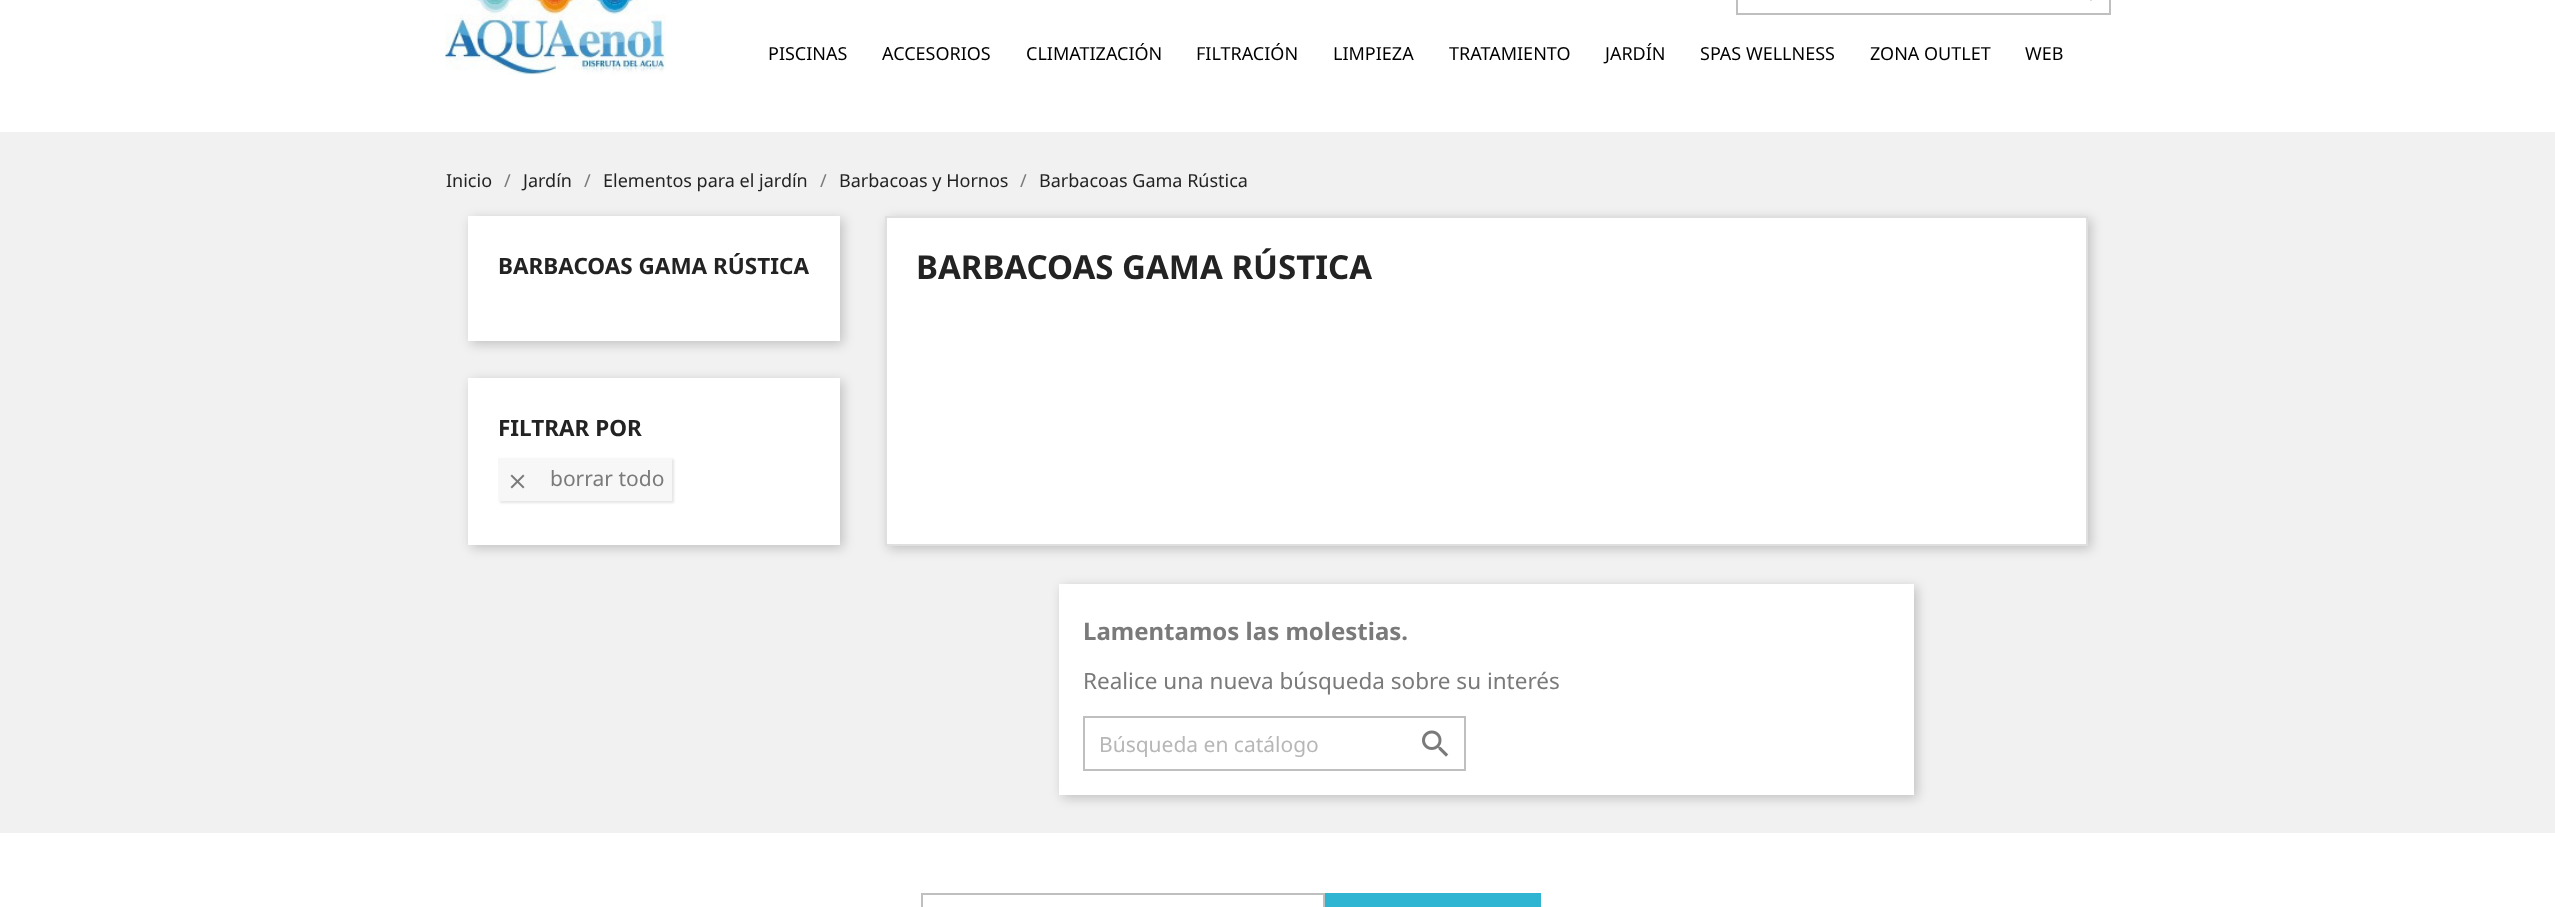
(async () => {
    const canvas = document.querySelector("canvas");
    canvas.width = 2555;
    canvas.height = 907;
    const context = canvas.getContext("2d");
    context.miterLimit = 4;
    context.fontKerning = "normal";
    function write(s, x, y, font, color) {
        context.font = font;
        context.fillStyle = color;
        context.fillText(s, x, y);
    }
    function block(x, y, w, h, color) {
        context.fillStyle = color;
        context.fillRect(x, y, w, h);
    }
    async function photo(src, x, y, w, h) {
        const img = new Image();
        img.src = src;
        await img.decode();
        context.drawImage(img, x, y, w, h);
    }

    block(0, 0, 2555, 907, "rgb(255, 255, 255)");
    await photo("media/1.png", 445, 0, 221, 75);
    context.strokeStyle = "rgb(191, 191, 191)";
    context.lineWidth = 2;
    context.strokeRect(1737, -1, 373, 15);
    await photo("media/2.png", 2090, 0, 2, 1);
    write("PISCINAS", 768, 60, "18px Noto Sans", "rgb(0, 0, 0)");
    write("ACCESORIOS", 882, 60, "18px Noto Sans", "rgb(0, 0, 0)");
    write("CLIMATIZACIÓN", 1026, 60, "18px Noto Sans", "rgb(0, 0, 0)");
    write("FILTRACIÓN", 1196, 60, "18px Noto Sans", "rgb(0, 0, 0)");
    write("LIMPIEZA", 1333, 60, "18px Noto Sans", "rgb(0, 0, 0)");
    write("TRATAMIENTO", 1449, 60, "18px Noto Sans", "rgb(0, 0, 0)");
    write("JARDÍN", 1605, 60, "18px Noto Sans", "rgb(0, 0, 0)");
    write("SPAS WELLNESS", 1700, 60, "18px Noto Sans", "rgb(0, 0, 0)");
    write("ZONA OUTLET", 1870, 60, "18px Noto Sans", "rgb(0, 0, 0)");
    write("WEB", 2025, 60, "18px Noto Sans", "rgb(0, 0, 0)");
    block(0, 132, 2555, 701, "rgb(241, 241, 241)");
    write("Inicio", 446, 187, "18px Noto Sans", "rgb(35, 35, 35)");
    write("/", 504, 187, "18px Noto Sans", "rgb(122, 122, 122)");
    write("Jardín", 523, 187, "18px Noto Sans", "rgb(35, 35, 35)");
    write("/", 584, 187, "18px Noto Sans", "rgb(122, 122, 122)");
    write("Elementos para el jardín", 603, 187, "18px Noto Sans", "rgb(35, 35, 35)");
    write("/", 820, 187, "18px Noto Sans", "rgb(122, 122, 122)");
    write("Barbacoas y Hornos", 839, 187, "18px Noto Sans", "rgb(35, 35, 35)");
    write("/", 1020, 187, "18px Noto Sans", "rgb(122, 122, 122)");
    write("Barbacoas Gama Rústica", 1039, 187, "18px Noto Sans", "rgb(35, 35, 35)");
    context.fillStyle = "rgba(0, 0, 0, 0.2)";
    context.filter = "blur(6px)";
    context.beginPath();
    context.rect(471, 219, 372, 125);
    context.fill();
    context.filter = "none";
    block(468, 216, 372, 125, "rgb(255, 255, 255)");
    write("BARBACOAS GAMA RÚSTICA", 498, 274, "bold 22.5px Noto Sans", "rgb(35, 35, 35)");
    context.fillStyle = "rgba(0, 0, 0, 0.2)";
    context.filter = "blur(6px)";
    context.beginPath();
    context.rect(471, 381, 372, 167);
    context.fill();
    context.filter = "none";
    block(468, 378, 372, 167, "rgb(255, 255, 255)");
    write("FILTRAR POR", 498, 436, "bold 22.5px Noto Sans", "rgb(35, 35, 35)");
    context.fillStyle = "rgba(0, 0, 0, 0.1)";
    context.filter = "blur(1px)";
    context.beginPath();
    context.rect(500, 459, 174, 44);
    context.fill();
    context.filter = "none";
    block(498, 458, 174, 43, "rgb(247, 247, 247)");
    await photo("media/3.png", 510, 474, 15, 15);
    write("borrar todo", 550, 486, "21px Noto Sans", "rgb(122, 122, 122)");
    context.fillStyle = "rgba(0, 0, 0, 0.2)";
    context.filter = "blur(6px)";
    context.beginPath();
    context.rect(888, 219, 1203, 330);
    context.fill();
    context.filter = "none";
    context.fillStyle = "rgb(255, 255, 255)";
    context.beginPath();
    context.rect(886, 217, 1201, 328);
    context.fill();
    context.strokeStyle = "rgb(223, 223, 223)";
    context.stroke();
    write("BARBACOAS GAMA RÚSTICA", 916, 279, "bold 33px Noto Sans", "rgb(35, 35, 35)");
    context.fillStyle = "rgba(0, 0, 0, 0.2)";
    context.filter = "blur(6px)";
    context.beginPath();
    context.rect(1062, 587, 855, 211);
    context.fill();
    context.filter = "none";
    block(1059, 584, 855, 211, "rgb(255, 255, 255)");
    write("Lamentamos las molestias.", 1083, 640, "bold 24px Noto Sans", "rgb(122, 122, 122)");
    write("Realice una nueva búsqueda sobre su interés", 1083, 689, "22.5px Noto Sans", "rgb(122, 122, 122)");
    context.strokeStyle = "rgb(191, 191, 191)";
    context.strokeRect(1084, 717, 381, 53);
    write("Búsqueda en catálogo", 1099, 752, "21px Noto Sans", "rgb(183, 183, 183)");
    await photo("media/4.png", 1422, 730, 27, 27);
    context.strokeRect(922, 894, 402, 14);
    block(1325, 893, 216, 14, "rgb(47, 181, 210)");
})();
